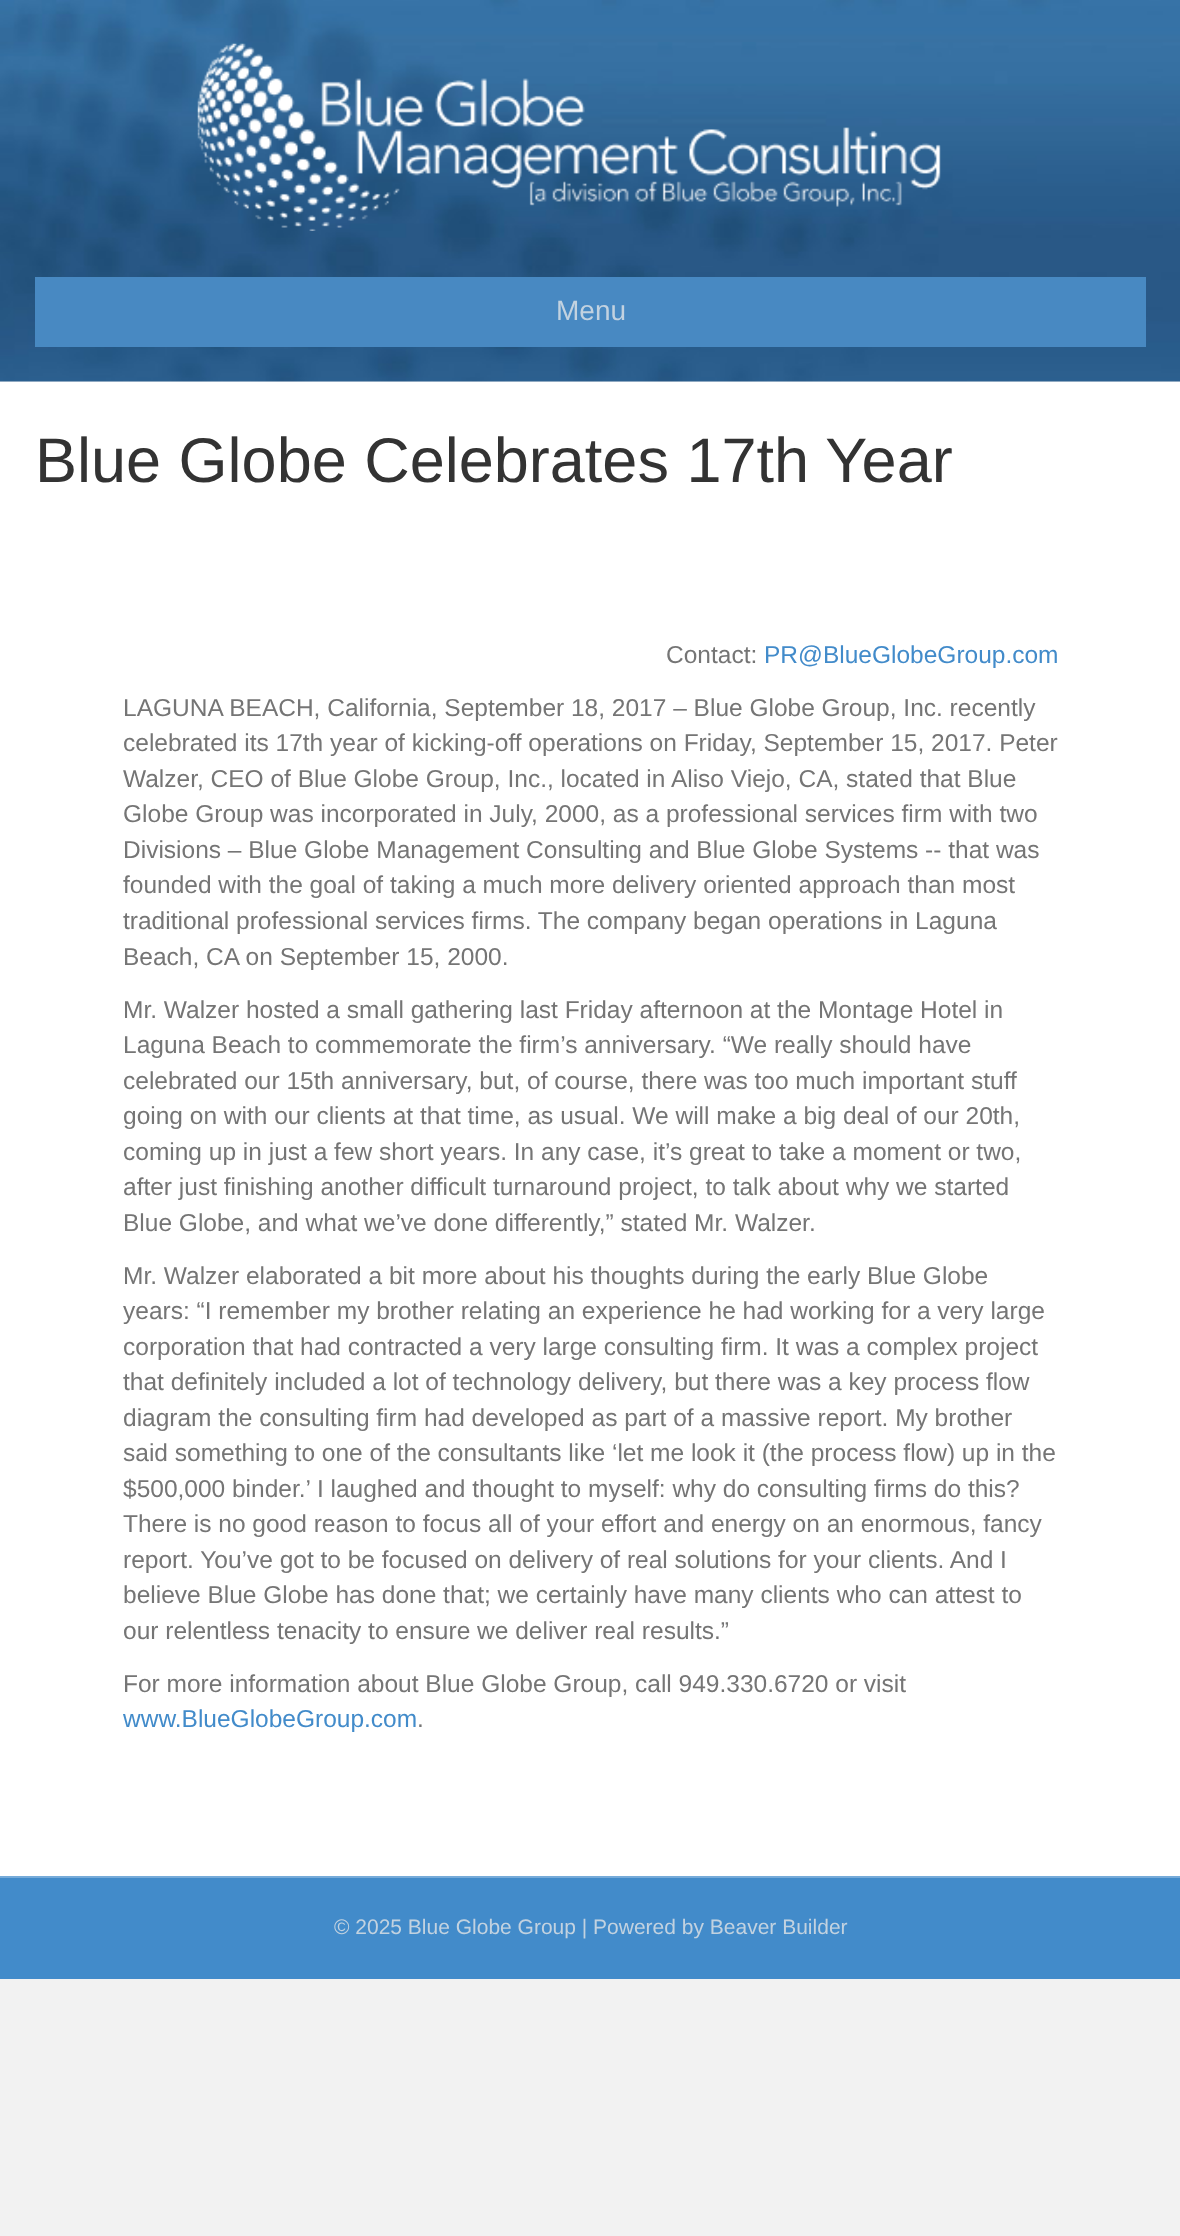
(async () => {
    const canvas = document.querySelector("canvas");
    canvas.width = 1180;
    canvas.height = 2236;
    const context = canvas.getContext("2d");
    context.miterLimit = 4;
    context.fontKerning = "normal";
    function write(s, x, y, font, color) {
        context.font = font;
        context.fillStyle = color;
        context.fillText(s, x, y);
    }
    function block(x, y, w, h, color) {
        context.fillStyle = color;
        context.fillRect(x, y, w, h);
    }
    async function photo(src, x, y, w, h) {
        const img = new Image();
        img.src = src;
        await img.decode();
        context.drawImage(img, x, y, w, h);
    }

    block(0, 0, 1180, 2236, "rgb(242, 242, 242)");
    await photo("media/1.png", 0, 0, 1180, 382);
    await photo("media/2.png", 197, 43, 744, 188);
    block(35, 277, 1111, 70, "rgb(72, 137, 194)");
    write("Menu", 556, 320, "28px Liberation Sans", "rgb(194, 210, 224)");
    block(0, 382, 1180, 1494, "rgb(255, 255, 255)");
    write("Blue Globe Celebrates 17th Year", 35, 482, "63px Liberation Sans", "rgb(51, 51, 51)");
    write("Contact:", 666, 663, "24.5px Liberation Sans", "rgb(117, 117, 117)");
    write("PR@BlueGlobeGroup.com", 764, 663, "24.5px Liberation Sans", "rgb(66, 139, 202)");
    write("LAGUNA BEACH, California, September 18, 2017 – Blue Globe Group, Inc. recently", 123, 716, "24.5px Liberation Sans", "rgb(117, 117, 117)");
    write("celebrated its 17th year of kicking-off operations on Friday, September 15, 2017. Peter", 123, 751, "24.5px Liberation Sans", "rgb(117, 117, 117)");
    write("Walzer, CEO of Blue Globe Group, Inc., located in Aliso Viejo, CA, stated that Blue", 123, 787, "24.5px Liberation Sans", "rgb(117, 117, 117)");
    write("Globe Group was incorporated in July, 2000, as a professional services firm with two", 123, 822, "24.5px Liberation Sans", "rgb(117, 117, 117)");
    write("Divisions – Blue Globe Management Consulting and Blue Globe Systems -- that was", 123, 858, "24.5px Liberation Sans", "rgb(117, 117, 117)");
    write("founded with the goal of taking a much more delivery oriented approach than most", 123, 893, "24.5px Liberation Sans", "rgb(117, 117, 117)");
    write("traditional professional services firms. The company began operations in Laguna", 123, 929, "24.5px Liberation Sans", "rgb(117, 117, 117)");
    write("Beach, CA on September 15, 2000.", 123, 965, "24.5px Liberation Sans", "rgb(117, 117, 117)");
    write("Mr. Walzer hosted a small gathering last Friday afternoon at the Montage Hotel in", 123, 1018, "24.5px Liberation Sans", "rgb(117, 117, 117)");
    write("Laguna Beach to commemorate the firm’s anniversary. “We really should have", 123, 1053, "24.5px Liberation Sans", "rgb(117, 117, 117)");
    write("celebrated our 15th anniversary, but, of course, there was too much important stuff", 123, 1089, "24.5px Liberation Sans", "rgb(117, 117, 117)");
    write("going on with our clients at that time, as usual. We will make a big deal of our 20th,", 123, 1124, "24.5px Liberation Sans", "rgb(117, 117, 117)");
    write("coming up in just a few short years. In any case, it’s great to take a moment or two,", 123, 1160, "24.5px Liberation Sans", "rgb(117, 117, 117)");
    write("after just finishing another difficult turnaround project, to talk about why we started", 123, 1195, "24.5px Liberation Sans", "rgb(117, 117, 117)");
    write("Blue Globe, and what we’ve done differently,” stated Mr. Walzer.", 123, 1231, "24.5px Liberation Sans", "rgb(117, 117, 117)");
    write("Mr. Walzer elaborated a bit more about his thoughts during the early Blue Globe", 123, 1284, "24.5px Liberation Sans", "rgb(117, 117, 117)");
    write("years: “I remember my brother relating an experience he had working for a very large", 123, 1319, "24.5px Liberation Sans", "rgb(117, 117, 117)");
    write("corporation that had contracted a very large consulting firm. It was a complex project", 123, 1355, "24.5px Liberation Sans", "rgb(117, 117, 117)");
    write("that definitely included a lot of technology delivery, but there was a key process flow", 123, 1390, "24.5px Liberation Sans", "rgb(117, 117, 117)");
    write("diagram the consulting firm had developed as part of a massive report. My brother", 123, 1426, "24.5px Liberation Sans", "rgb(117, 117, 117)");
    write("said something to one of the consultants like ‘let me look it (the process flow) up in the", 123, 1461, "24.5px Liberation Sans", "rgb(117, 117, 117)");
    write("$500,000 binder.’ I laughed and thought to myself: why do consulting firms do this?", 123, 1497, "24.5px Liberation Sans", "rgb(117, 117, 117)");
    write("There is no good reason to focus all of your effort and energy on an enormous, fancy", 123, 1532, "24.5px Liberation Sans", "rgb(117, 117, 117)");
    write("report. You’ve got to be focused on delivery of real solutions for your clients. And I", 123, 1568, "24.5px Liberation Sans", "rgb(117, 117, 117)");
    write("believe Blue Globe has done that; we certainly have many clients who can attest to", 123, 1603, "24.5px Liberation Sans", "rgb(117, 117, 117)");
    write("our relentless tenacity to ensure we deliver real results.”", 123, 1639, "24.5px Liberation Sans", "rgb(117, 117, 117)");
    write("For more information about Blue Globe Group, call 949.330.6720 or visit", 123, 1692, "24.5px Liberation Sans", "rgb(117, 117, 117)");
    write("www.BlueGlobeGroup.com", 123, 1727, "24.5px Liberation Sans", "rgb(66, 139, 202)");
    write(".", 417, 1727, "24.5px Liberation Sans", "rgb(117, 117, 117)");
    block(0, 1878, 1180, 101, "rgb(66, 139, 202)");
    block(0, 1876, 1180, 2, "rgb(118, 171, 217)");
    write("© 2025 Blue Globe Group | Powered by Beaver Builder", 334, 1934, "21px Liberation Sans", "rgb(194, 210, 224)");
})();
